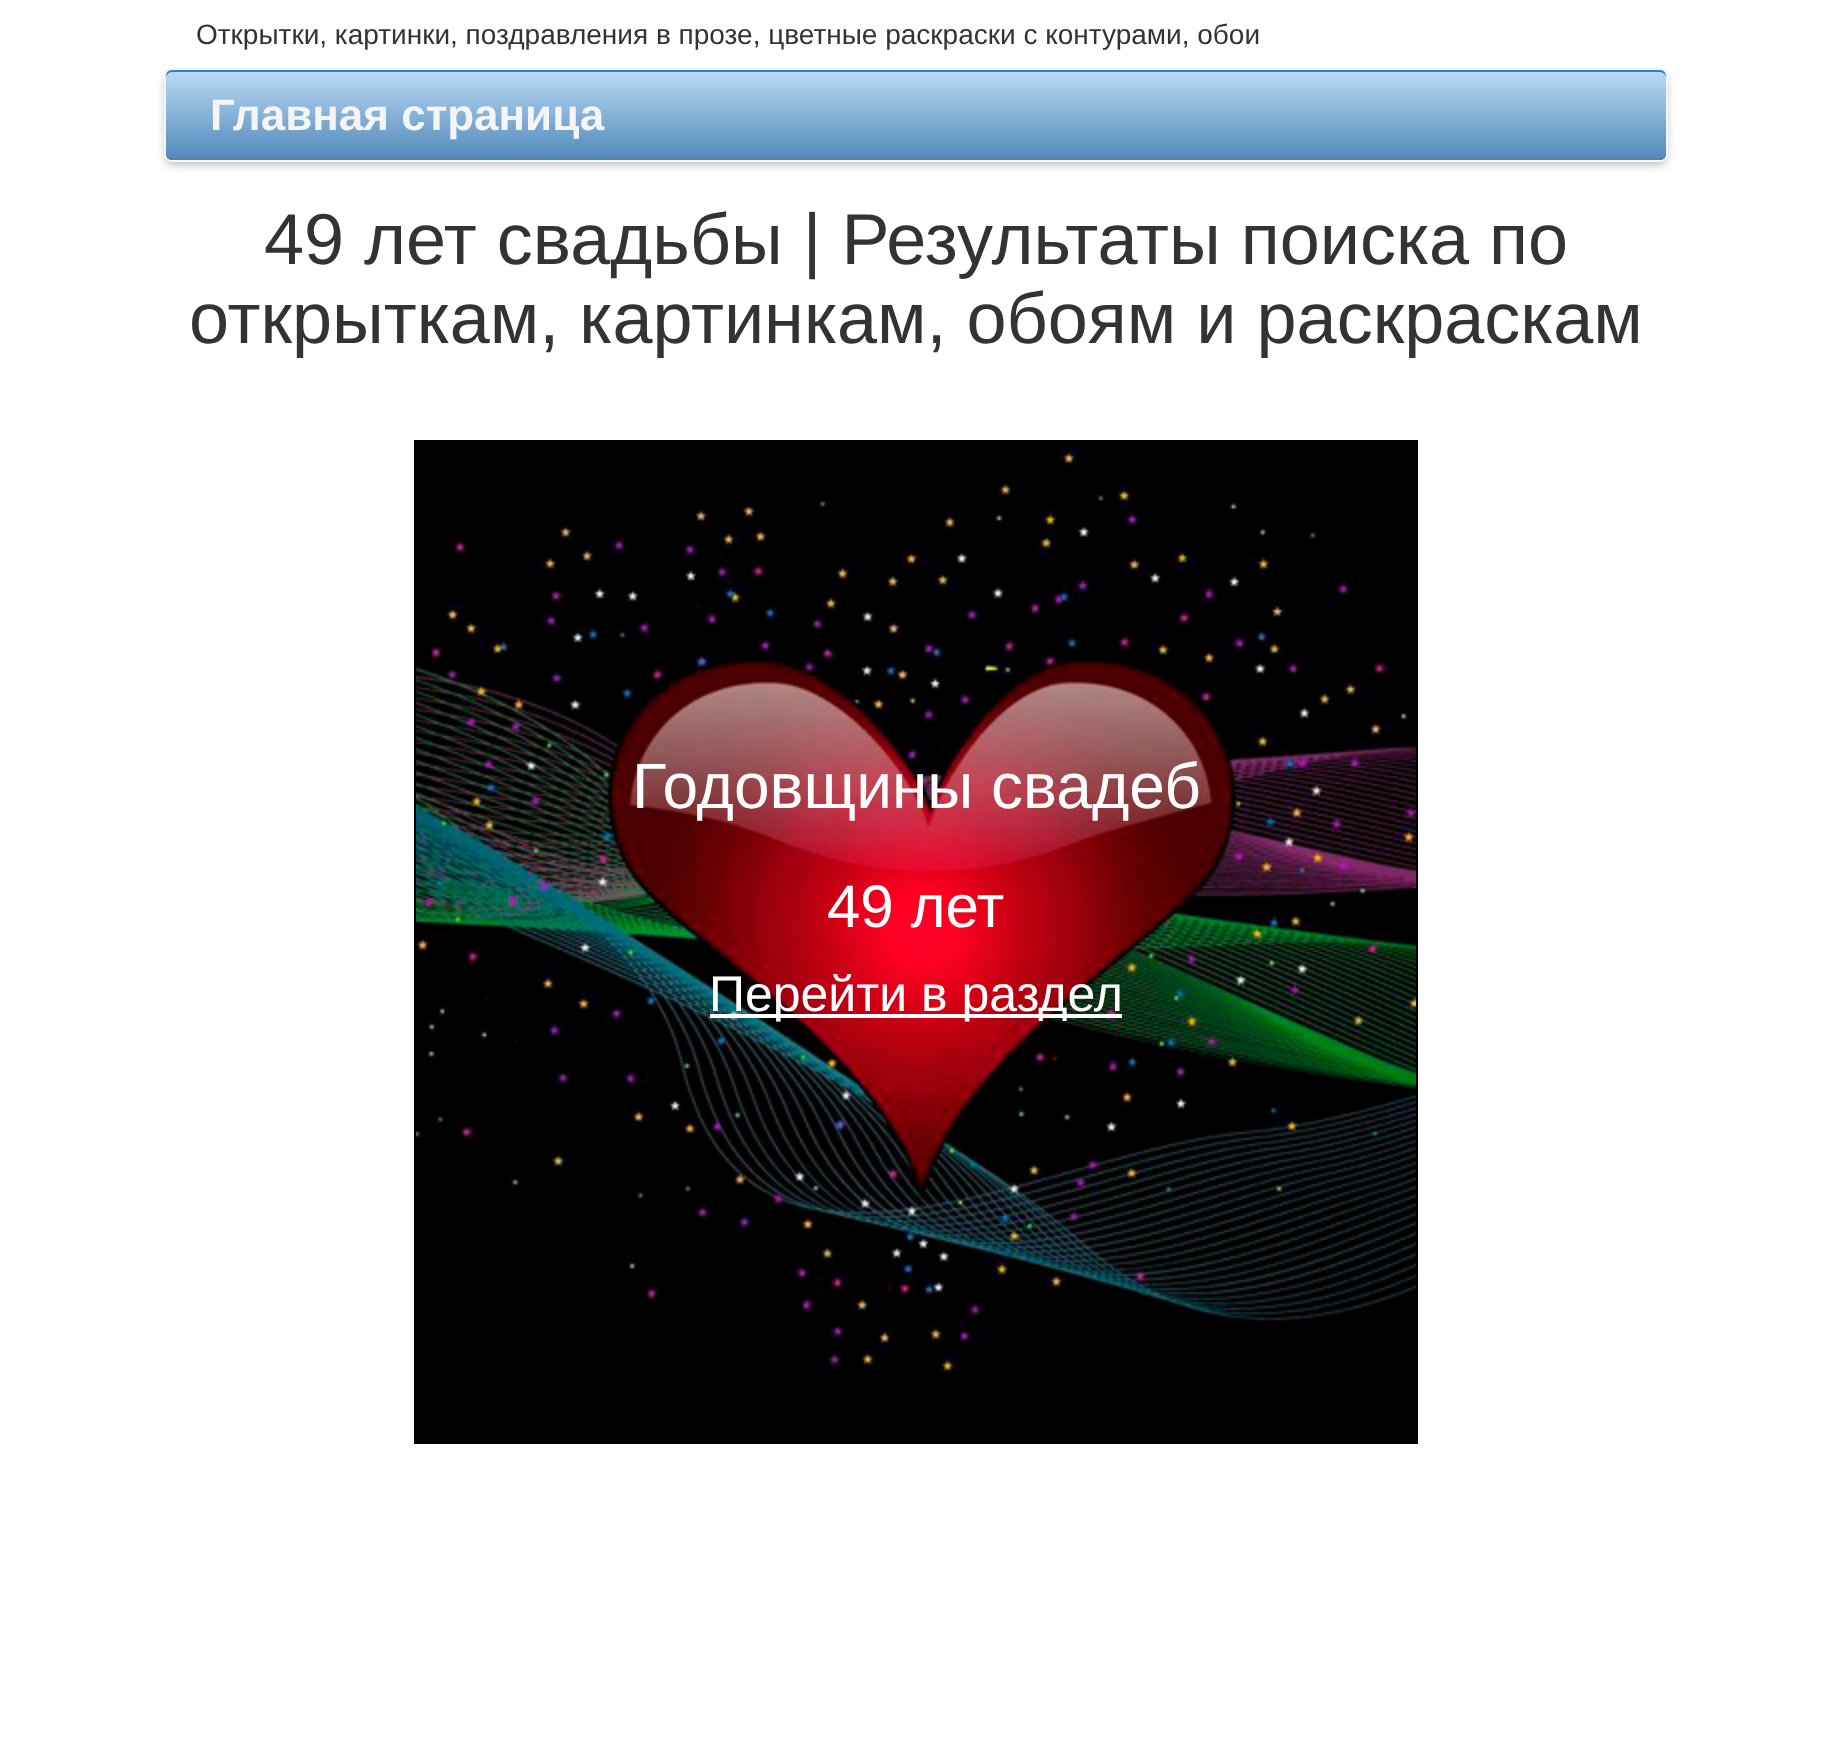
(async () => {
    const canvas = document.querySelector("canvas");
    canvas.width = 1831;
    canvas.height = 1763;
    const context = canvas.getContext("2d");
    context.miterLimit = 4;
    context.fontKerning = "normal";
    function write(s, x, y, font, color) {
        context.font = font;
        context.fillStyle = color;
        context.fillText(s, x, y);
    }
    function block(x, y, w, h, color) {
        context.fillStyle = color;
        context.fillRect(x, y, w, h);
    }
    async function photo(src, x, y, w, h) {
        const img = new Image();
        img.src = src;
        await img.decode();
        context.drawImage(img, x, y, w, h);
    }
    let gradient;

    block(0, 0, 1831, 1763, "rgb(255, 255, 255)");
    write("Открытки, картинки, поздравления в прозе, цветные раскраски с контурами, обои", 196, 44, "28px Liberation Sans", "rgb(51, 51, 51)");
    context.fillStyle = "rgba(0, 0, 0, 0.3)";
    context.filter = "blur(5px)";
    context.beginPath();
    context.roundRect(166, 74, 1500, 90, 6);
    context.fill();
    context.filter = "none";
    context.beginPath();
    context.roundRect(165, 69, 1502, 92, 7);
    context.strokeStyle = "rgb(240, 248, 255)";
    context.lineWidth = 2;
    context.stroke();
    gradient = context.createLinearGradient(916, 70, 916, 160);
    gradient.addColorStop(0, "rgb(188, 219, 247)");
    gradient.addColorStop(1, "rgb(80, 136, 185)");
    context.fillStyle = gradient;
    context.beginPath();
    context.roundRect(166, 70, 1500, 90, 6);
    context.fill();
    context.fillStyle = "rgb(54, 127, 191)";
    context.beginPath();
    context.moveTo(172, 72);
    context.lineTo(1660, 72);
    context.bezierCurveTo(1663, 72, 1666, 75, 1666, 78);
    context.bezierCurveTo(1666, 74, 1665, 70, 1660, 70);
    context.lineTo(172, 70);
    context.bezierCurveTo(167, 70, 166, 74, 166, 78);
    context.bezierCurveTo(166, 75, 169, 72, 172, 72);
    context.closePath();
    context.fill();
    context.fillStyle = "rgb(88, 129, 165)";
    context.beginPath();
    context.moveTo(166, 152);
    context.bezierCurveTo(166, 156, 167, 160, 172, 160);
    context.lineTo(1660, 160);
    context.bezierCurveTo(1665, 160, 1666, 156, 1666, 152);
    context.bezierCurveTo(1666, 155, 1663, 158, 1660, 158);
    context.lineTo(172, 158);
    context.bezierCurveTo(169, 158, 166, 155, 166, 152);
    context.closePath();
    context.fill();
    write("Главная страница", 210, 130, "bold 44px Liberation Sans", "rgb(245, 245, 245)");
    write("49 лет свадьбы | Результаты поиска по", 264, 264, "72px Liberation Sans", "rgb(51, 51, 51)");
    write("открыткам, картинкам, обоям и раскраскам", 189, 343, "72px Liberation Sans", "rgb(51, 51, 51)");
    context.strokeStyle = "rgb(0, 0, 0)";
    context.strokeRect(415, 441, 1002, 1002);
    await photo("media/1.png", 416, 442, 1000, 1000);
    write("Годовщины свадеб", 632, 808, "64px Liberation Sans", "rgb(255, 255, 255)");
    write("49 лет", 827, 927, "60px Liberation Sans", "rgb(255, 255, 255)");
    block(710, 1014, 412, 4, "rgb(255, 255, 255)");
    write("Перейти в раздел", 709, 1011, "50px Liberation Sans", "rgb(255, 255, 255)");
})();
